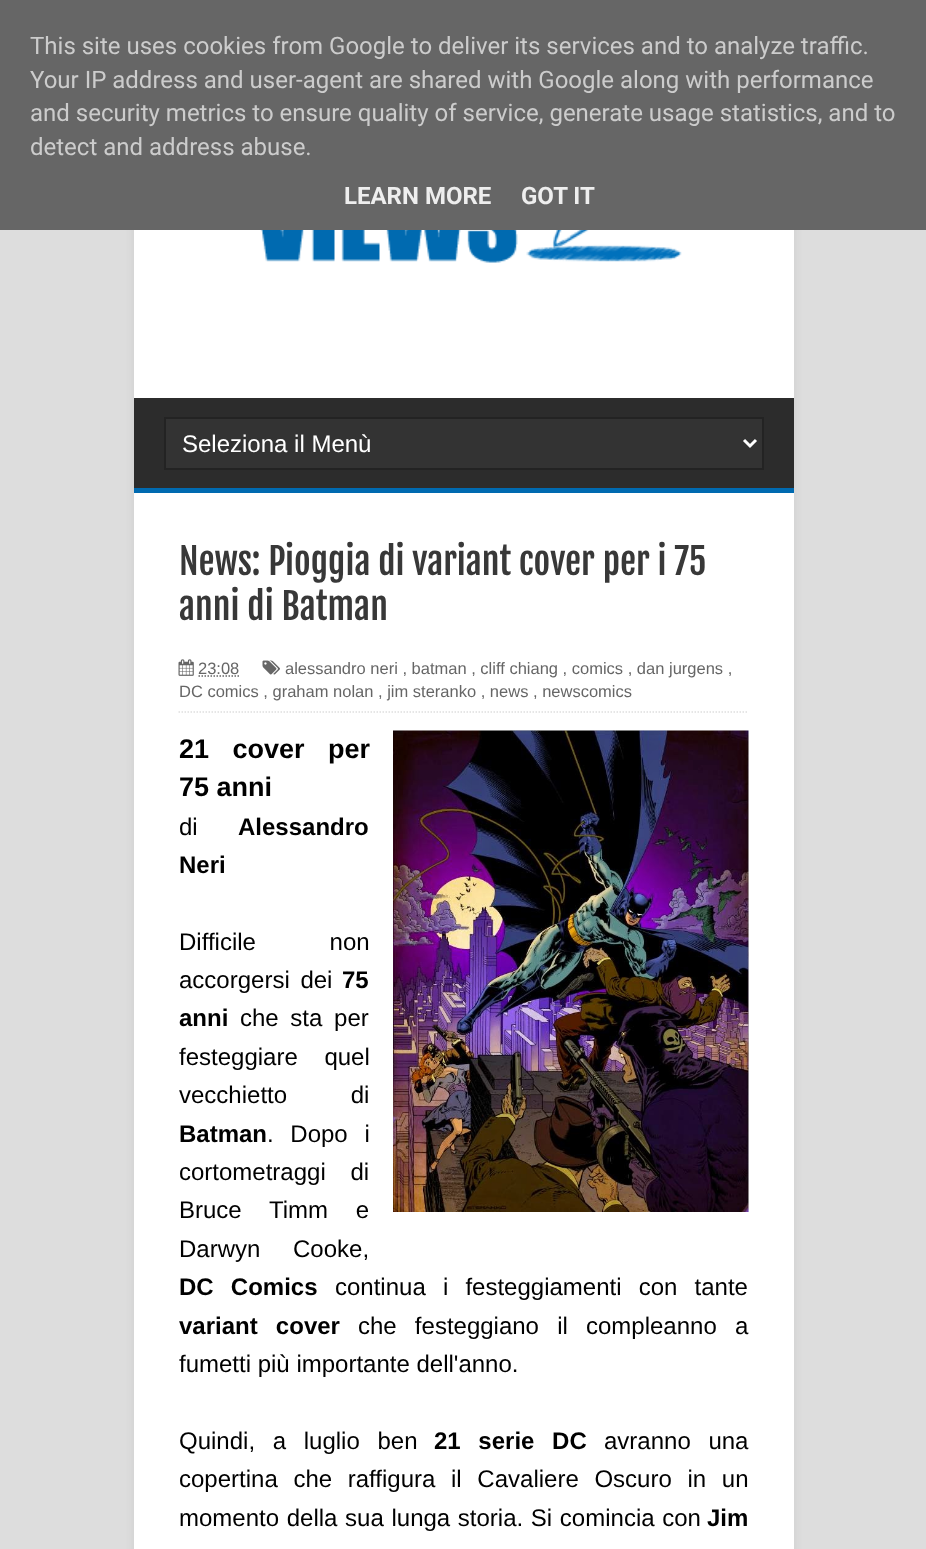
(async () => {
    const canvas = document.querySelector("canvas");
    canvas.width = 926;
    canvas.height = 1549;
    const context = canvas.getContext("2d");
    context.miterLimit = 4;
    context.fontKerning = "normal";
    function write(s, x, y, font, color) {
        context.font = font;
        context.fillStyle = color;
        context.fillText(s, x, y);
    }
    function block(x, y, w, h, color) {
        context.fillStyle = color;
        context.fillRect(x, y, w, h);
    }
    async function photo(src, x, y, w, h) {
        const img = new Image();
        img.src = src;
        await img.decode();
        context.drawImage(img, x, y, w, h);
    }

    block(0, 0, 926, 1549, "rgb(221, 221, 221)");
    context.fillStyle = "rgba(80, 80, 80, 0.1)";
    context.filter = "blur(4px)";
    context.beginPath();
    context.rect(134, 0, 660, 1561);
    context.fill();
    context.filter = "none";
    block(0, 0, 926, 230, "rgb(102, 102, 102)");
    write("This site uses cookies from Google to deliver its services and to analyze traffic.", 30, 54, "24px Roboto", "rgb(204, 204, 204)");
    write("Your IP address and user-agent are shared with Google along with performance", 30, 88, "24px Roboto", "rgb(204, 204, 204)");
    write("and security metrics to ensure quality of service, generate usage statistics, and to", 30, 121, "24px Roboto", "rgb(204, 204, 204)");
    write("detect and address abuse.", 30, 155, "24px Roboto", "rgb(204, 204, 204)");
    write("LEARN MORE", 344, 204, "bold 24px Roboto", "rgb(238, 238, 238)");
    write("GOT IT", 521, 204, "bold 24px Roboto", "rgb(238, 238, 238)");
    block(134, 230, 660, 1319, "rgb(255, 255, 255)");
    await photo("media/1.png", 259, 230, 423, 33);
    block(134, 398, 660, 90, "rgb(44, 44, 44)");
    block(134, 488, 660, 5, "rgb(0, 106, 176)");
    context.fillStyle = "rgb(51, 51, 51)";
    context.beginPath();
    context.rect(165, 418, 598, 51);
    context.fill();
    context.strokeStyle = "rgb(35, 35, 35)";
    context.lineWidth = 2;
    context.stroke();
    context.beginPath();
    context.moveTo(744, 440);
    context.lineTo(750, 446);
    context.lineTo(756, 440);
    context.strokeStyle = "rgb(255, 255, 255)";
    context.lineWidth = 3;
    context.stroke();
    write("Seleziona il Menù", 182, 452, "24px Liberation Sans", "rgb(255, 255, 255)");
    write("News: Pioggia di variant cover per i 75", 179, 575, "36px Fjalla One", "rgb(56, 56, 56)");
    write("anni di Batman", 179, 620, "36px Fjalla One", "rgb(56, 56, 56)");
    context.beginPath();
    context.moveTo(178.5, 712);
    context.lineTo(748.5, 712);
    context.strokeStyle = "rgb(222, 222, 222)";
    context.lineWidth = 1.5;
    context.setLineDash([1.5, 1.5]);
    context.stroke();
    await photo("media/2.png", 262, 660, 18, 15);
    write("alessandro neri , batman , cliff chiang , comics , dan jurgens ,", 285, 674, "16.5px Liberation Sans", "rgb(102, 102, 102)");
    write("DC comics , graham nolan , jim steranko , news , newscomics", 179, 697, "16.5px Liberation Sans", "rgb(102, 102, 102)");
    await photo("media/3.png", 178, 659, 16, 17);
    write("23:08", 198, 674, "16.5px Liberation Sans", "rgb(102, 102, 102)");
    context.beginPath();
    context.moveTo(198.5, 676);
    context.lineTo(239.5, 676);
    context.strokeStyle = "rgb(102, 102, 102)";
    context.stroke();
    context.wordSpacing = "16px";
    write("21 cover per", 179, 758, "bold 27px Liberation Sans", "rgb(0, 0, 0)");
    context.wordSpacing = "0px";
    write("75 anni", 179, 796, "bold 27px Liberation Sans", "rgb(0, 0, 0)");
    await photo("media/4.png", 393, 730, 356, 482);
    write("di", 179, 835, "24px Liberation Sans", "rgb(0, 0, 0)");
    write("Alessandro", 238, 835, "bold 24px Liberation Sans", "rgb(0, 0, 0)");
    write("Neri", 179, 873, "bold 24px Liberation Sans", "rgb(0, 0, 0)");
    context.wordSpacing = "67px";
    write("Difficile non", 179, 950, "24px Liberation Sans", "rgb(0, 0, 0)");
    context.wordSpacing = "4px";
    write("accorgersi dei", 179, 988, "24px Liberation Sans", "rgb(0, 0, 0)");
    context.wordSpacing = "0px";
    write("75", 342, 988, "bold 24px Liberation Sans", "rgb(0, 0, 0)");
    write("anni", 179, 1026, "bold 24px Liberation Sans", "rgb(0, 0, 0)");
    context.wordSpacing = "5px";
    write("che sta per", 240, 1026, "24px Liberation Sans", "rgb(0, 0, 0)");
    context.wordSpacing = "20px";
    write("festeggiare quel", 179, 1065, "24px Liberation Sans", "rgb(0, 0, 0)");
    context.wordSpacing = "57px";
    write("vecchietto di", 179, 1103, "24px Liberation Sans", "rgb(0, 0, 0)");
    context.wordSpacing = "0px";
    write("Batman", 179, 1142, "bold 24px Liberation Sans", "rgb(0, 0, 0)");
    context.wordSpacing = "10px";
    write(". Dopo i", 267, 1142, "24px Liberation Sans", "rgb(0, 0, 0)");
    context.wordSpacing = "18px";
    write("cortometraggi di", 179, 1180, "24px Liberation Sans", "rgb(0, 0, 0)");
    context.wordSpacing = "21px";
    write("Bruce Timm e", 179, 1218, "24px Liberation Sans", "rgb(0, 0, 0)");
    context.wordSpacing = "26px";
    write("Darwyn Cooke,", 179, 1257, "24px Liberation Sans", "rgb(0, 0, 0)");
    context.wordSpacing = "10.5px";
    write("DC Comics", 179, 1295, "bold 24px Liberation Sans", "rgb(0, 0, 0)");
    write("continua i festeggiamenti con tante", 335, 1295, "24px Liberation Sans", "rgb(0, 0, 0)");
    context.wordSpacing = "11.5px";
    write("variant cover", 179, 1334, "bold 24px Liberation Sans", "rgb(0, 0, 0)");
    write("che festeggiano il compleanno a", 358, 1334, "24px Liberation Sans", "rgb(0, 0, 0)");
    context.wordSpacing = "0px";
    write("fumetti più importante dell'anno.", 179, 1372, "24px Liberation Sans", "rgb(0, 0, 0)");
    context.wordSpacing = "11px";
    write("Quindi, a luglio ben", 179, 1449, "24px Liberation Sans", "rgb(0, 0, 0)");
    write("21 serie DC", 434, 1449, "bold 24px Liberation Sans", "rgb(0, 0, 0)");
    write("avranno una", 604, 1449, "24px Liberation Sans", "rgb(0, 0, 0)");
    context.wordSpacing = "9px";
    write("copertina che raffigura il Cavaliere Oscuro in un", 179, 1487, "24px Liberation Sans", "rgb(0, 0, 0)");
    context.wordSpacing = "1px";
    write("momento della sua lunga storia. Si comincia con", 179, 1526, "24px Liberation Sans", "rgb(0, 0, 0)");
    context.wordSpacing = "0px";
    write("Jim", 707, 1526, "bold 24px Liberation Sans", "rgb(0, 0, 0)");
})();
